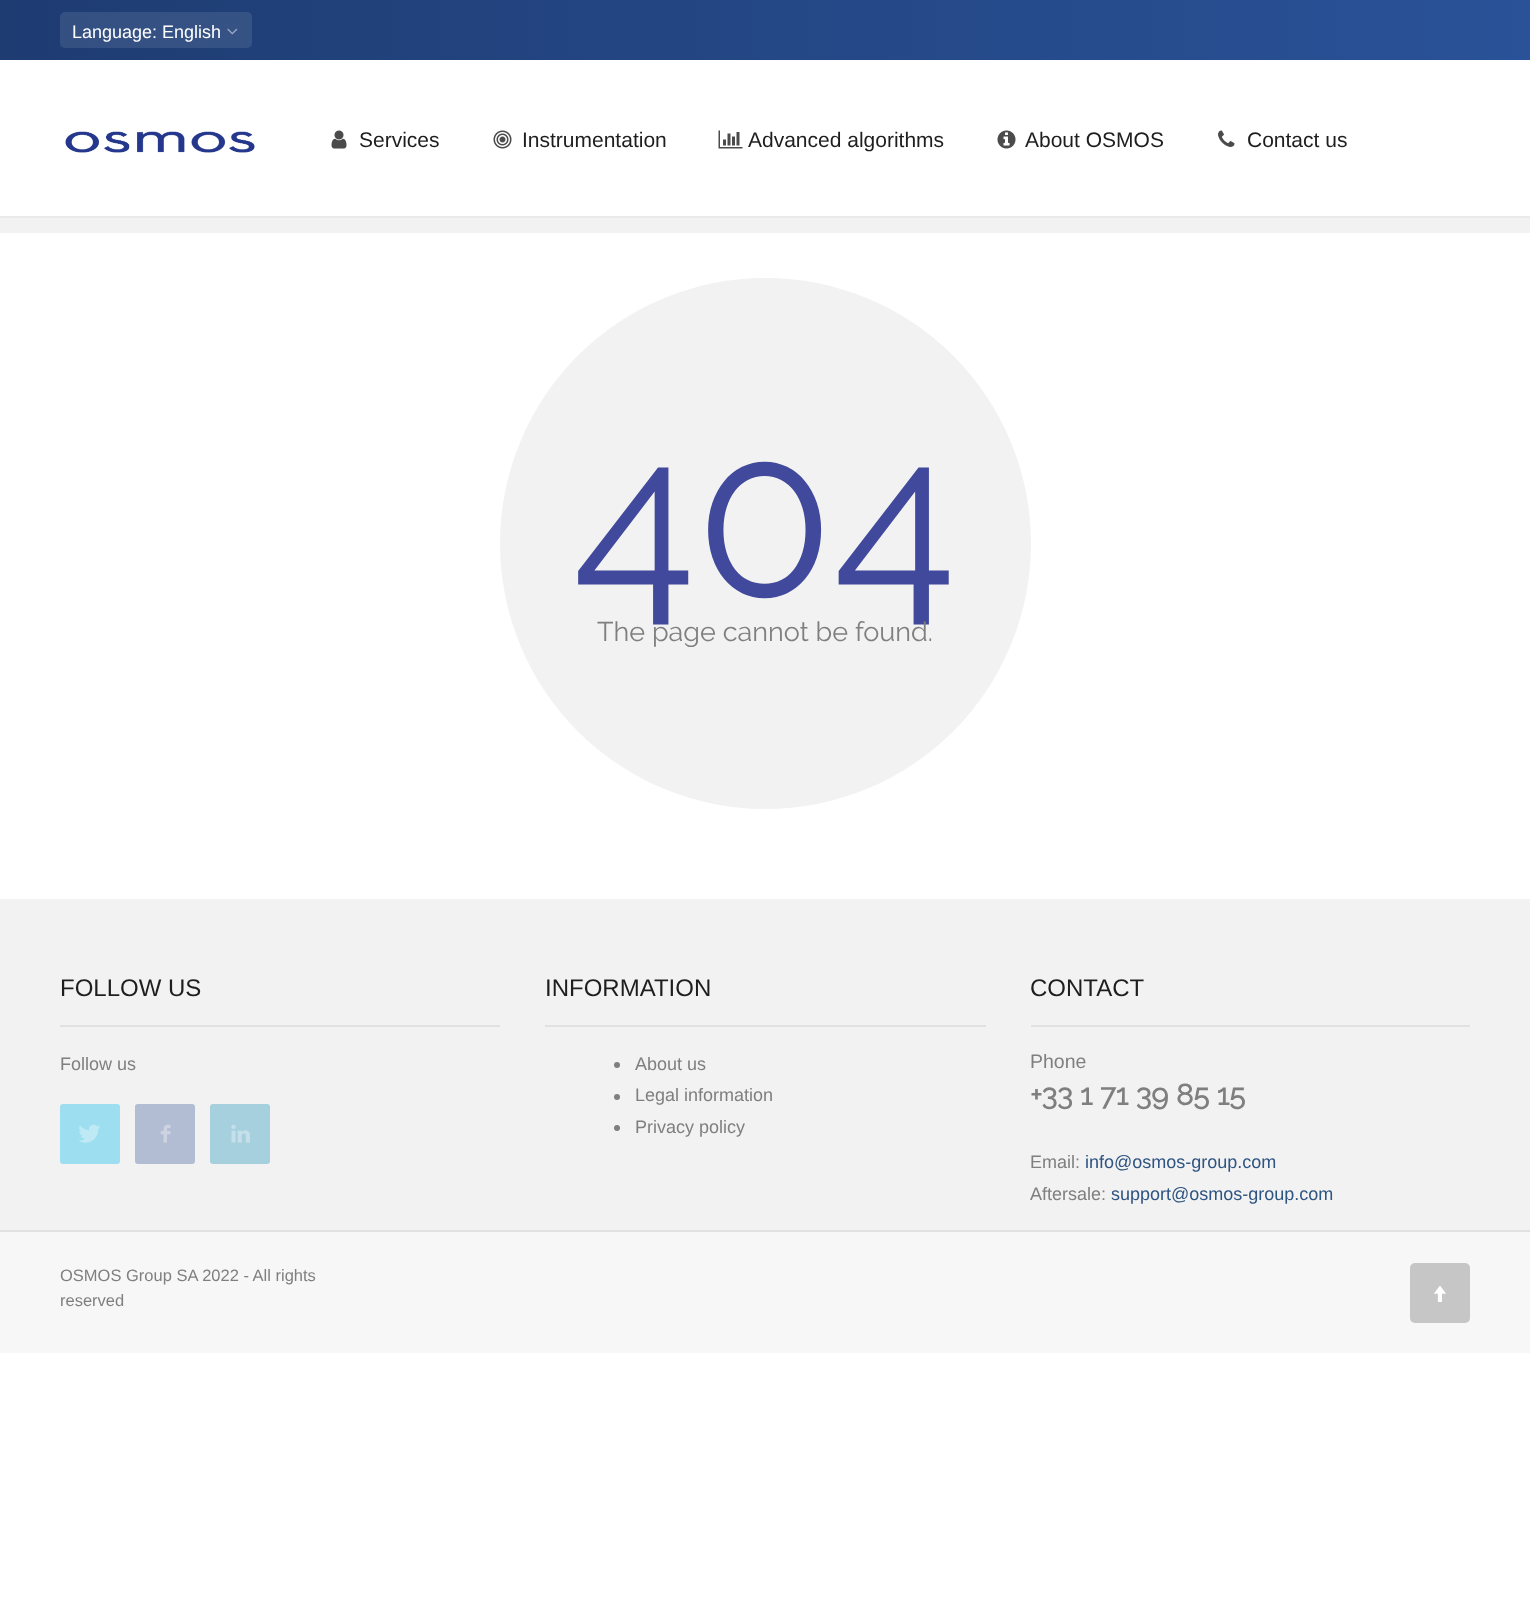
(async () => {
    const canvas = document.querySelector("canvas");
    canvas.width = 1530;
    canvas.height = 1603;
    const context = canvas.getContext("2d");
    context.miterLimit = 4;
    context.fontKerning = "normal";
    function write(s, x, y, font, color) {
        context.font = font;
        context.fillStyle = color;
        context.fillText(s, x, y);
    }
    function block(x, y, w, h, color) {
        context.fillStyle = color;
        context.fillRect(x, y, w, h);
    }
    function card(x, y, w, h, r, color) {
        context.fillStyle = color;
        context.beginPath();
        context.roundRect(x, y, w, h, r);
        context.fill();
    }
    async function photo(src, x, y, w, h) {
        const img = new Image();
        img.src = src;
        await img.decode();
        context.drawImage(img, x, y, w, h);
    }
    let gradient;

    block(0, 0, 1530, 1603, "rgb(255, 255, 255)");
    gradient = context.createLinearGradient(0, 30, 1530, 30);
    gradient.addColorStop(0, "rgb(30, 60, 114)");
    gradient.addColorStop(1, "rgb(42, 82, 152)");
    context.fillStyle = gradient;
    context.fillRect(0, 0, 1530, 60);
    card(60, 12, 192, 36, 5, "rgba(255, 255, 255, 0.1)");
    write("Language: English", 72, 38, "18px Liberation Sans", "rgb(255, 255, 255)");
    await photo("media/1.png", 227, 28, 11, 7);
    block(0, 216, 1530, 2, "rgb(234, 234, 234)");
    await photo("media/2.png", 65, 131, 190, 22);
    await photo("media/3.png", 331, 130, 16, 19);
    write("Services", 359, 147, "21px Liberation Sans", "rgb(30, 30, 30)");
    await photo("media/4.png", 493, 130, 19, 19);
    write("Instrumentation", 522, 147, "21px Liberation Sans", "rgb(30, 30, 30)");
    await photo("media/5.png", 718, 130, 25, 19);
    write("Advanced algorithms", 748, 147, "21px Liberation Sans", "rgb(30, 30, 30)");
    await photo("media/6.png", 997, 130, 19, 19);
    write("About OSMOS", 1025, 147, "21px Liberation Sans", "rgb(30, 30, 30)");
    await photo("media/7.png", 1218, 130, 17, 17);
    write("Contact us", 1247, 147, "21px Liberation Sans", "rgb(30, 30, 30)");
    block(0, 218, 1530, 15, "rgb(242, 242, 242)");
    context.beginPath();
    context.arc(765.5, 543.5, 265.5, 0, Math.PI * 2);
    context.fill();
    write("404", 573, 596, "225px Raleway", "rgb(64, 73, 155)");
    write("The page cannot be found.", 597, 641, "27px Raleway", "rgb(127, 127, 127)");
    block(0, 899, 1530, 331, "rgb(242, 242, 242)");
    block(60, 1025, 440, 2, "rgb(225, 225, 225)");
    write("FOLLOW US", 60, 996, "24px Liberation Sans", "rgb(30, 30, 30)");
    write("Follow us", 60, 1070, "18px Liberation Sans", "rgb(127, 127, 127)");
    card(60, 1104, 60, 60, 3, "rgb(157, 223, 240)");
    await photo("media/8.png", 78, 1124, 22, 19);
    card(135, 1104, 60, 60, 3, "rgb(178, 188, 210)");
    await photo("media/9.png", 160, 1124, 11, 19);
    card(210, 1104, 60, 60, 3, "rgb(167, 208, 223)");
    await photo("media/10.png", 231, 1124, 19, 19);
    block(545, 1025, 441, 2, "rgb(225, 225, 225)");
    write("INFORMATION", 545, 996, "24px Liberation Sans", "rgb(30, 30, 30)");
    context.fillStyle = "rgb(127, 127, 127)";
    context.beginPath();
    context.arc(617, 1065, 3, 0, Math.PI * 2);
    context.fill();
    write("About us", 635, 1070, "18px Liberation Sans", "rgb(127, 127, 127)");
    context.beginPath();
    context.arc(617, 1097, 3, 0, Math.PI * 2);
    context.fill();
    write("Legal information", 635, 1101, "18px Liberation Sans", "rgb(127, 127, 127)");
    context.beginPath();
    context.arc(617, 1128, 3, 0, Math.PI * 2);
    context.fill();
    write("Privacy policy", 635, 1133, "18px Liberation Sans", "rgb(127, 127, 127)");
    block(1031, 1025, 439, 2, "rgb(225, 225, 225)");
    write("CONTACT", 1030, 996, "24px Liberation Sans", "rgb(30, 30, 30)");
    write("Phone", 1030, 1068, "19.5px Liberation Sans", "rgb(127, 127, 127)");
    write("+33 1 71 39 85 15", 1030, 1105, "bold 29.25px Raleway", "rgb(127, 127, 127)");
    write("Email:", 1030, 1168, "18px Liberation Sans", "rgb(127, 127, 127)");
    write("info@osmos-group.com", 1085, 1168, "18px Liberation Sans", "rgb(46, 84, 129)");
    write("Aftersale:", 1030, 1200, "18px Liberation Sans", "rgb(127, 127, 127)");
    write("support@osmos-group.com", 1111, 1200, "18px Liberation Sans", "rgb(46, 84, 129)");
    block(0, 1232, 1530, 121, "rgb(247, 247, 247)");
    block(0, 1230, 1530, 2, "rgb(225, 225, 225)");
    write("OSMOS Group SA 2022 - All rights", 60, 1281, "16.5px Liberation Sans", "rgb(127, 127, 127)");
    write("reserved", 60, 1306, "16.5px Liberation Sans", "rgb(127, 127, 127)");
    card(1410, 1263, 60, 60, 5, "rgb(198, 198, 198)");
    await photo("media/11.png", 1434, 1285, 12, 17);
})();
